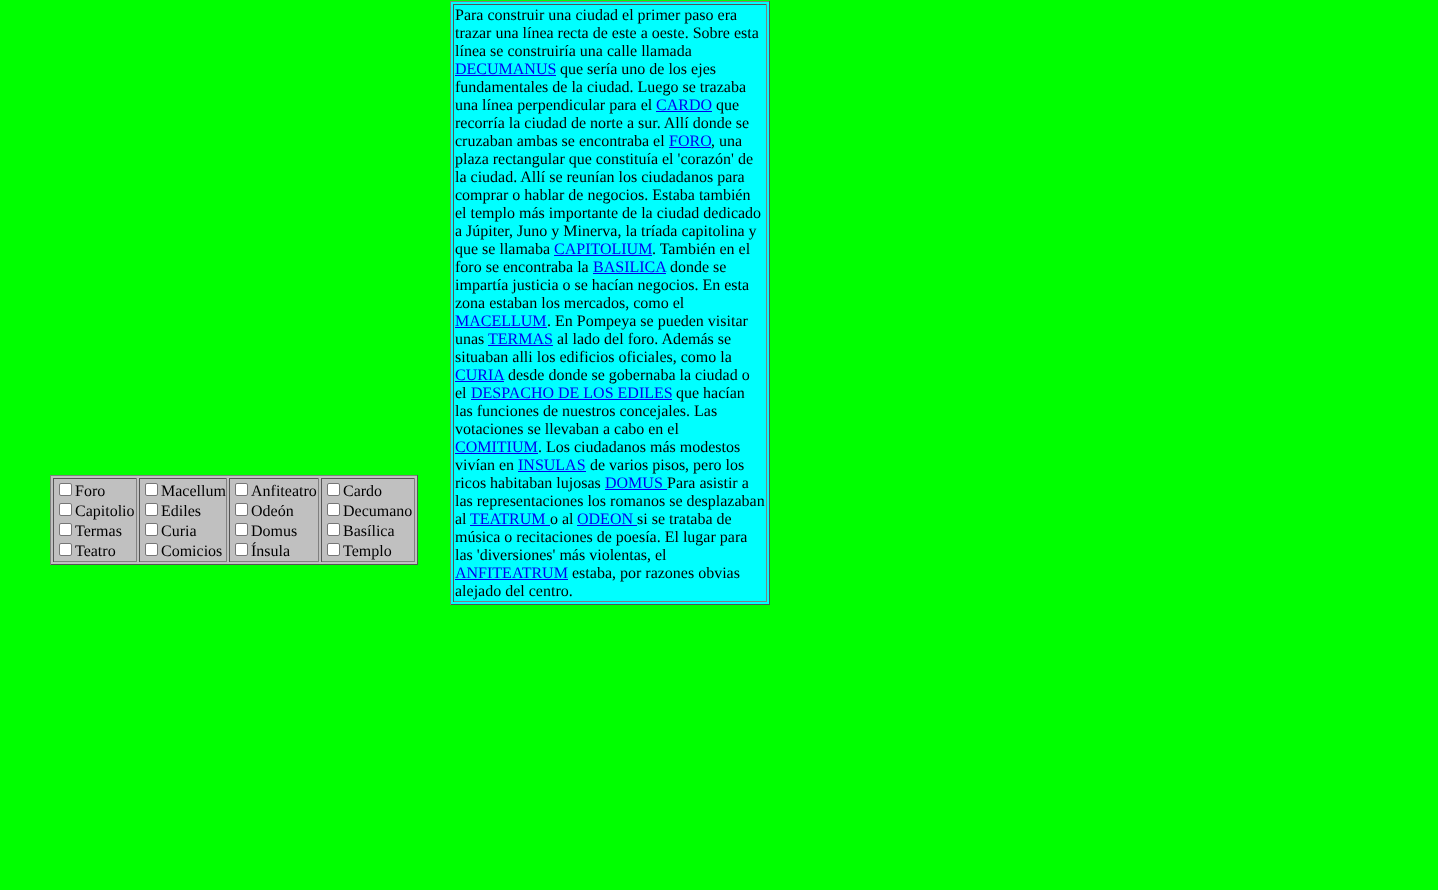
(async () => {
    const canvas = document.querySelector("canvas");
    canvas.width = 1438;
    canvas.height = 890;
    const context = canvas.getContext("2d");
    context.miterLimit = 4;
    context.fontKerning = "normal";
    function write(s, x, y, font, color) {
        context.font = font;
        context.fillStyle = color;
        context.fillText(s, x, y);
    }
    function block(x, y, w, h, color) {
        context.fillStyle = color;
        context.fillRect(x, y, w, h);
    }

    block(0, 0, 1438, 890, "rgb(0, 255, 0)");
    block(51, 476, 366, 88, "rgb(192, 192, 192)");
    block(50, 475, 368, 1, "rgb(128, 128, 128)");
    block(417, 475, 1, 90, "rgb(85, 85, 85)");
    block(50, 564, 368, 1, "rgb(85, 85, 85)");
    block(50, 475, 1, 90, "rgb(128, 128, 128)");
    block(53, 478, 84, 1, "rgb(85, 85, 85)");
    block(136, 478, 1, 84, "rgb(128, 128, 128)");
    block(53, 561, 84, 1, "rgb(128, 128, 128)");
    block(53, 478, 1, 84, "rgb(85, 85, 85)");
    context.fillStyle = "rgb(255, 255, 255)";
    context.beginPath();
    context.roundRect(59.5, 483.5, 12, 12, 1.5);
    context.fill();
    context.strokeStyle = "rgb(118, 118, 118)";
    context.stroke();
    write("Foro", 75, 496, "16px Liberation Serif", "rgb(0, 0, 0)");
    context.fillStyle = "rgb(255, 255, 255)";
    context.beginPath();
    context.roundRect(59.5, 503.5, 12, 12, 1.5);
    context.fill();
    context.stroke();
    write("Capitolio", 75, 516, "16px Liberation Serif", "rgb(0, 0, 0)");
    context.fillStyle = "rgb(255, 255, 255)";
    context.beginPath();
    context.roundRect(59.5, 523.5, 12, 12, 1.5);
    context.fill();
    context.stroke();
    write("Termas", 75, 536, "16px Liberation Serif", "rgb(0, 0, 0)");
    context.fillStyle = "rgb(255, 255, 255)";
    context.beginPath();
    context.roundRect(59.5, 543.5, 12, 12, 1.5);
    context.fill();
    context.stroke();
    write("Teatro", 75, 556, "16px Liberation Serif", "rgb(0, 0, 0)");
    block(139, 478, 88, 1, "rgb(85, 85, 85)");
    block(226, 478, 1, 84, "rgb(128, 128, 128)");
    block(139, 561, 88, 1, "rgb(128, 128, 128)");
    block(139, 478, 1, 84, "rgb(85, 85, 85)");
    context.fillStyle = "rgb(255, 255, 255)";
    context.beginPath();
    context.roundRect(145.5, 483.5, 12, 12, 1.5);
    context.fill();
    context.stroke();
    write("Macellum", 161, 496, "16px Liberation Serif", "rgb(0, 0, 0)");
    context.fillStyle = "rgb(255, 255, 255)";
    context.beginPath();
    context.roundRect(145.5, 503.5, 12, 12, 1.5);
    context.fill();
    context.stroke();
    write("Ediles", 161, 516, "16px Liberation Serif", "rgb(0, 0, 0)");
    context.fillStyle = "rgb(255, 255, 255)";
    context.beginPath();
    context.roundRect(145.5, 523.5, 12, 12, 1.5);
    context.fill();
    context.stroke();
    write("Curia", 161, 536, "16px Liberation Serif", "rgb(0, 0, 0)");
    context.fillStyle = "rgb(255, 255, 255)";
    context.beginPath();
    context.roundRect(145.5, 543.5, 12, 12, 1.5);
    context.fill();
    context.stroke();
    write("Comicios", 161, 556, "16px Liberation Serif", "rgb(0, 0, 0)");
    block(229, 478, 90, 1, "rgb(85, 85, 85)");
    block(318, 478, 1, 84, "rgb(128, 128, 128)");
    block(229, 561, 90, 1, "rgb(128, 128, 128)");
    block(229, 478, 1, 84, "rgb(85, 85, 85)");
    context.fillStyle = "rgb(255, 255, 255)";
    context.beginPath();
    context.roundRect(235.5, 483.5, 12, 12, 1.5);
    context.fill();
    context.stroke();
    write("Anfiteatro", 251, 496, "16px Liberation Serif", "rgb(0, 0, 0)");
    context.fillStyle = "rgb(255, 255, 255)";
    context.beginPath();
    context.roundRect(235.5, 503.5, 12, 12, 1.5);
    context.fill();
    context.stroke();
    write("Odeón", 251, 516, "16px Liberation Serif", "rgb(0, 0, 0)");
    context.fillStyle = "rgb(255, 255, 255)";
    context.beginPath();
    context.roundRect(235.5, 523.5, 12, 12, 1.5);
    context.fill();
    context.stroke();
    write("Domus", 251, 536, "16px Liberation Serif", "rgb(0, 0, 0)");
    context.fillStyle = "rgb(255, 255, 255)";
    context.beginPath();
    context.roundRect(235.5, 543.5, 12, 12, 1.5);
    context.fill();
    context.stroke();
    write("Ínsula", 251, 556, "16px Liberation Serif", "rgb(0, 0, 0)");
    block(321, 478, 94, 1, "rgb(85, 85, 85)");
    block(414, 478, 1, 84, "rgb(128, 128, 128)");
    block(321, 561, 94, 1, "rgb(128, 128, 128)");
    block(321, 478, 1, 84, "rgb(85, 85, 85)");
    context.fillStyle = "rgb(255, 255, 255)";
    context.beginPath();
    context.roundRect(327.5, 483.5, 12, 12, 1.5);
    context.fill();
    context.stroke();
    write("Cardo", 343, 496, "16px Liberation Serif", "rgb(0, 0, 0)");
    context.fillStyle = "rgb(255, 255, 255)";
    context.beginPath();
    context.roundRect(327.5, 503.5, 12, 12, 1.5);
    context.fill();
    context.stroke();
    write("Decumano", 343, 516, "16px Liberation Serif", "rgb(0, 0, 0)");
    context.fillStyle = "rgb(255, 255, 255)";
    context.beginPath();
    context.roundRect(327.5, 523.5, 12, 12, 1.5);
    context.fill();
    context.stroke();
    write("Basílica", 343, 536, "16px Liberation Serif", "rgb(0, 0, 0)");
    context.fillStyle = "rgb(255, 255, 255)";
    context.beginPath();
    context.roundRect(327.5, 543.5, 12, 12, 1.5);
    context.fill();
    context.stroke();
    write("Templo", 343, 556, "16px Liberation Serif", "rgb(0, 0, 0)");
    block(451, 2, 318, 602, "rgb(0, 255, 255)");
    block(450, 1, 320, 1, "rgb(128, 128, 128)");
    block(769, 1, 1, 604, "rgb(85, 85, 85)");
    block(450, 604, 320, 1, "rgb(85, 85, 85)");
    block(450, 1, 1, 604, "rgb(128, 128, 128)");
    block(453, 4, 314, 1, "rgb(85, 85, 85)");
    block(766, 4, 1, 598, "rgb(128, 128, 128)");
    block(453, 601, 314, 1, "rgb(128, 128, 128)");
    block(453, 4, 1, 598, "rgb(85, 85, 85)");
    write("Para construir una ciudad el primer paso era", 455, 20, "16px Liberation Serif", "rgb(0, 0, 0)");
    write("trazar una línea recta de este a oeste. Sobre esta", 455, 38, "16px Liberation Serif", "rgb(0, 0, 0)");
    write("línea se construiría una calle llamada", 455, 56, "16px Liberation Serif", "rgb(0, 0, 0)");
    write("DECUMANUS", 455, 74, "16px Liberation Serif", "rgb(0, 0, 238)");
    block(455, 75, 101, 1, "rgb(0, 0, 238)");
    write("que sería uno de los ejes", 560, 74, "16px Liberation Serif", "rgb(0, 0, 0)");
    write("fundamentales de la ciudad. Luego se trazaba", 455, 92, "16px Liberation Serif", "rgb(0, 0, 0)");
    write("una línea perpendicular para el", 455, 110, "16px Liberation Serif", "rgb(0, 0, 0)");
    write("CARDO", 656, 110, "16px Liberation Serif", "rgb(0, 0, 238)");
    block(656, 111, 56, 1, "rgb(0, 0, 238)");
    write("que", 716, 110, "16px Liberation Serif", "rgb(0, 0, 0)");
    write("recorría la ciudad de norte a sur. Allí donde se", 455, 128, "16px Liberation Serif", "rgb(0, 0, 0)");
    write("cruzaban ambas se encontraba el", 455, 146, "16px Liberation Serif", "rgb(0, 0, 0)");
    write("FORO", 669, 146, "16px Liberation Serif", "rgb(0, 0, 238)");
    block(669, 147, 42, 1, "rgb(0, 0, 238)");
    write(", una", 711, 146, "16px Liberation Serif", "rgb(0, 0, 0)");
    write("plaza rectangular que constituía el 'corazón' de", 455, 164, "16px Liberation Serif", "rgb(0, 0, 0)");
    write("la ciudad. Allí se reunían los ciudadanos para", 455, 182, "16px Liberation Serif", "rgb(0, 0, 0)");
    write("comprar o hablar de negocios. Estaba también", 455, 200, "16px Liberation Serif", "rgb(0, 0, 0)");
    write("el templo más importante de la ciudad dedicado", 455, 218, "16px Liberation Serif", "rgb(0, 0, 0)");
    write("a Júpiter, Juno y Minerva, la tríada capitolina y", 455, 236, "16px Liberation Serif", "rgb(0, 0, 0)");
    write("que se llamaba", 455, 254, "16px Liberation Serif", "rgb(0, 0, 0)");
    write("CAPITOLIUM", 554, 254, "16px Liberation Serif", "rgb(0, 0, 238)");
    block(554, 255, 98, 1, "rgb(0, 0, 238)");
    write(". También en el", 652, 254, "16px Liberation Serif", "rgb(0, 0, 0)");
    write("foro se encontraba la", 455, 272, "16px Liberation Serif", "rgb(0, 0, 0)");
    write("BASILICA", 593, 272, "16px Liberation Serif", "rgb(0, 0, 238)");
    block(593, 273, 73, 1, "rgb(0, 0, 238)");
    write("donde se", 670, 272, "16px Liberation Serif", "rgb(0, 0, 0)");
    write("impartía justicia o se hacían negocios. En esta", 455, 290, "16px Liberation Serif", "rgb(0, 0, 0)");
    write("zona estaban los mercados, como el", 455, 308, "16px Liberation Serif", "rgb(0, 0, 0)");
    write("MACELLUM", 455, 326, "16px Liberation Serif", "rgb(0, 0, 238)");
    block(455, 327, 92, 1, "rgb(0, 0, 238)");
    write(". En Pompeya se pueden visitar", 547, 326, "16px Liberation Serif", "rgb(0, 0, 0)");
    write("unas", 455, 344, "16px Liberation Serif", "rgb(0, 0, 0)");
    write("TERMAS", 488, 344, "16px Liberation Serif", "rgb(0, 0, 238)");
    block(488, 345, 65, 1, "rgb(0, 0, 238)");
    write("al lado del foro. Además se", 557, 344, "16px Liberation Serif", "rgb(0, 0, 0)");
    write("situaban alli los edificios oficiales, como la", 455, 362, "16px Liberation Serif", "rgb(0, 0, 0)");
    write("CURIA", 455, 380, "16px Liberation Serif", "rgb(0, 0, 238)");
    block(455, 381, 49, 1, "rgb(0, 0, 238)");
    write("desde donde se gobernaba la ciudad o", 508, 380, "16px Liberation Serif", "rgb(0, 0, 0)");
    write("el", 455, 398, "16px Liberation Serif", "rgb(0, 0, 0)");
    write("DESPACHO DE LOS EDILES", 471, 398, "16px Liberation Serif", "rgb(0, 0, 238)");
    block(471, 399, 201, 1, "rgb(0, 0, 238)");
    write("que hacían", 676, 398, "16px Liberation Serif", "rgb(0, 0, 0)");
    write("las funciones de nuestros concejales. Las", 455, 416, "16px Liberation Serif", "rgb(0, 0, 0)");
    write("votaciones se llevaban a cabo en el", 455, 434, "16px Liberation Serif", "rgb(0, 0, 0)");
    write("COMITIUM", 455, 452, "16px Liberation Serif", "rgb(0, 0, 238)");
    block(455, 453, 83, 1, "rgb(0, 0, 238)");
    write(". Los ciudadanos más modestos", 538, 452, "16px Liberation Serif", "rgb(0, 0, 0)");
    write("vivían en", 455, 470, "16px Liberation Serif", "rgb(0, 0, 0)");
    write("INSULAS", 518, 470, "16px Liberation Serif", "rgb(0, 0, 238)");
    block(518, 471, 68, 1, "rgb(0, 0, 238)");
    write("de varios pisos, pero los", 590, 470, "16px Liberation Serif", "rgb(0, 0, 0)");
    write("ricos habitaban lujosas", 455, 488, "16px Liberation Serif", "rgb(0, 0, 0)");
    write("DOMUS", 605, 488, "16px Liberation Serif", "rgb(0, 0, 238)");
    block(605, 489, 62, 1, "rgb(0, 0, 238)");
    write("Para asistir a", 667, 488, "16px Liberation Serif", "rgb(0, 0, 0)");
    write("las representaciones los romanos se desplazaban", 455, 506, "16px Liberation Serif", "rgb(0, 0, 0)");
    write("al", 455, 524, "16px Liberation Serif", "rgb(0, 0, 0)");
    write("TEATRUM", 470, 524, "16px Liberation Serif", "rgb(0, 0, 238)");
    block(470, 525, 80, 1, "rgb(0, 0, 238)");
    write("o al", 550, 524, "16px Liberation Serif", "rgb(0, 0, 0)");
    write("ODEON", 577, 524, "16px Liberation Serif", "rgb(0, 0, 238)");
    block(577, 525, 60, 1, "rgb(0, 0, 238)");
    write("si se trataba de", 637, 524, "16px Liberation Serif", "rgb(0, 0, 0)");
    write("música o recitaciones de poesía. El lugar para", 455, 542, "16px Liberation Serif", "rgb(0, 0, 0)");
    write("las 'diversiones' más violentas, el", 455, 560, "16px Liberation Serif", "rgb(0, 0, 0)");
    write("ANFITEATRUM", 455, 578, "16px Liberation Serif", "rgb(0, 0, 238)");
    block(455, 579, 113, 1, "rgb(0, 0, 238)");
    write("estaba, por razones obvias", 572, 578, "16px Liberation Serif", "rgb(0, 0, 0)");
    write("alejado del centro.", 455, 596, "16px Liberation Serif", "rgb(0, 0, 0)");
})();
